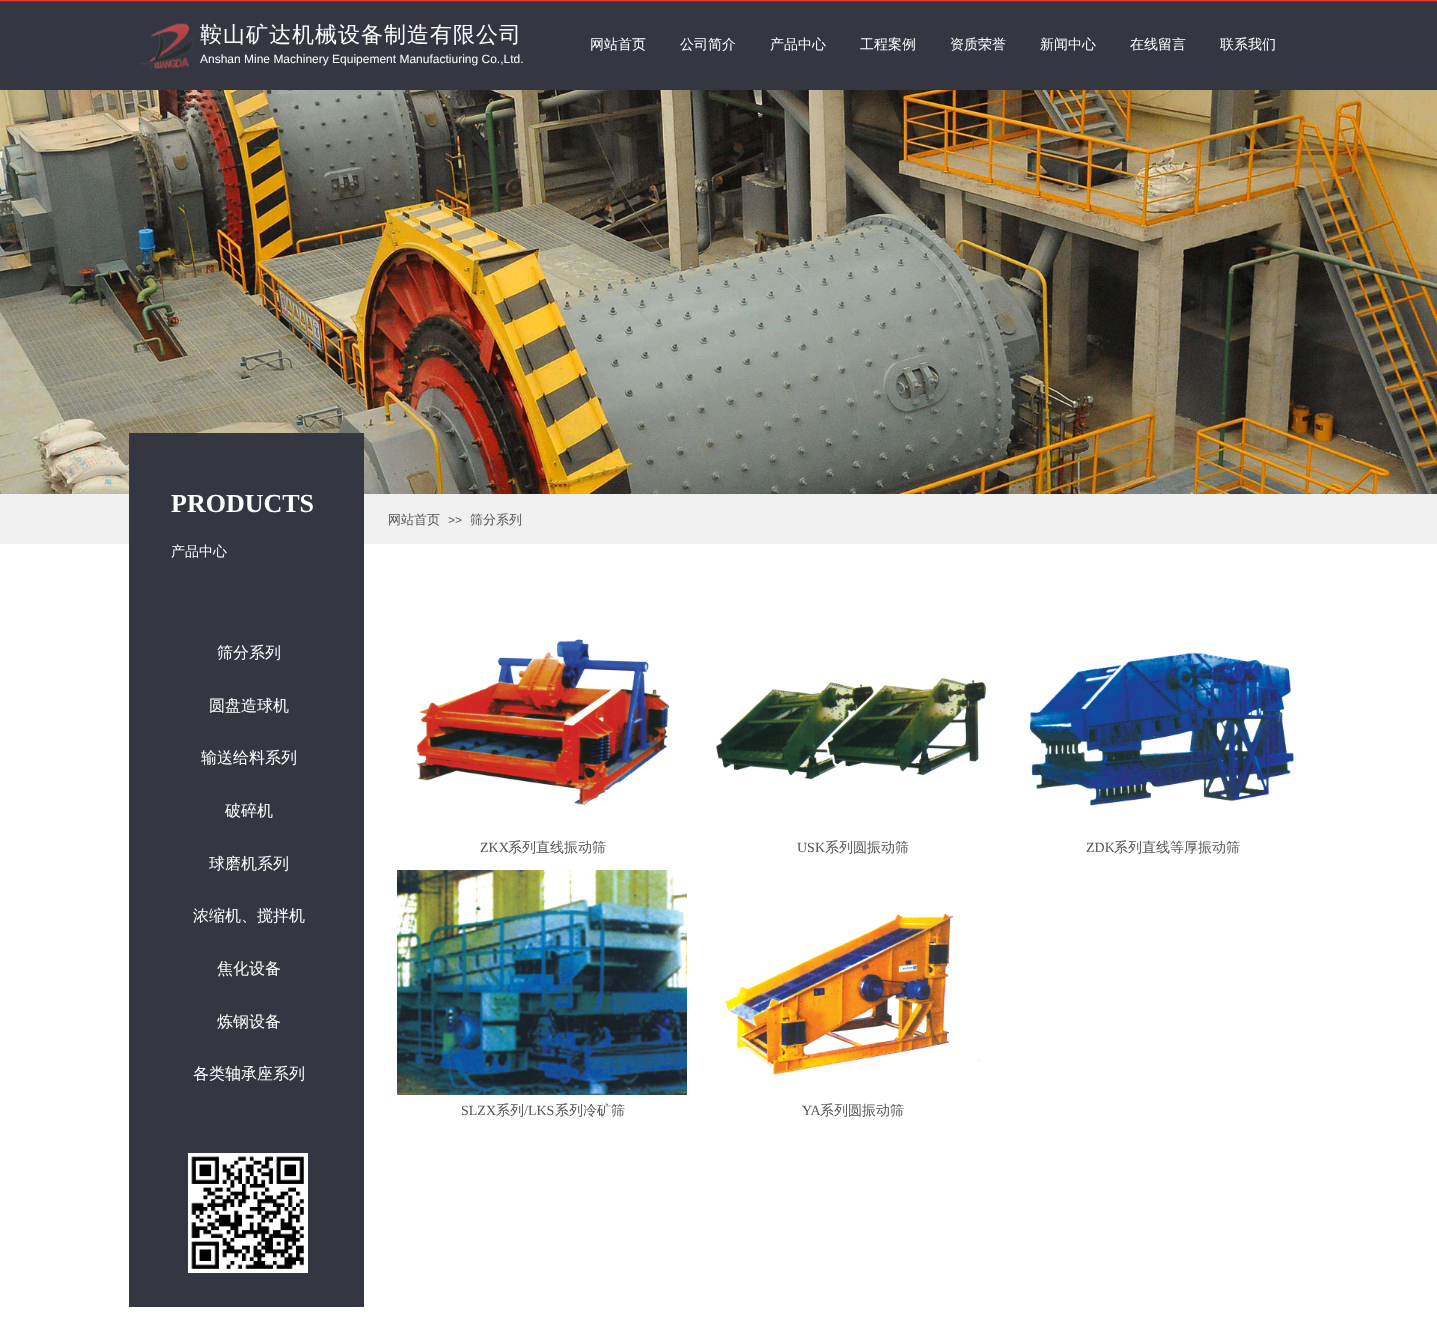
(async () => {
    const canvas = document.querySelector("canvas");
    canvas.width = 1437;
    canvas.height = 1322;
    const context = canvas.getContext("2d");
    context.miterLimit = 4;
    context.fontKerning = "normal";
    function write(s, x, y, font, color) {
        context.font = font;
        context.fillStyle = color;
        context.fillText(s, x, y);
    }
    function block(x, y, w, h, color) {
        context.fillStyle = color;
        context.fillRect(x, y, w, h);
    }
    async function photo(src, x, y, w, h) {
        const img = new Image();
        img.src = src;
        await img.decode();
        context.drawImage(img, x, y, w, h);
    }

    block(0, 0, 1437, 1322, "rgb(255, 255, 255)");
    await photo("media/1.png", 0, 0, 1437, 90);
    await photo("media/2.png", 141, 23, 53, 47);
    context.letterSpacing = "1px";
    write("鞍山矿达机械设备制造有限公司", 200, 42, "500 22px WenQuanYi Zen Hei", "rgb(255, 255, 255)");
    context.letterSpacing = "0px";
    write("Anshan Mine Machinery Equipement Manufactiuring Co.,Ltd.", 200, 63, "12px Liberation Sans", "rgb(255, 255, 255)");
    write("网站首页", 590, 49, "500 14px WenQuanYi Zen Hei", "rgb(255, 255, 255)");
    write("公司简介", 680, 49, "500 14px WenQuanYi Zen Hei", "rgb(255, 255, 255)");
    write("产品中心", 770, 49, "500 14px WenQuanYi Zen Hei", "rgb(255, 255, 255)");
    write("工程案例", 860, 49, "500 14px WenQuanYi Zen Hei", "rgb(255, 255, 255)");
    write("资质荣誉", 950, 49, "500 14px WenQuanYi Zen Hei", "rgb(255, 255, 255)");
    write("新闻中心", 1040, 49, "500 14px WenQuanYi Zen Hei", "rgb(255, 255, 255)");
    write("在线留言", 1130, 49, "500 14px WenQuanYi Zen Hei", "rgb(255, 255, 255)");
    write("联系我们", 1220, 49, "500 14px WenQuanYi Zen Hei", "rgb(255, 255, 255)");
    await photo("media/3.png", 0, 90, 1437, 404);
    block(0, 494, 1437, 50, "rgb(240, 240, 240)");
    block(129, 433, 235, 197, "rgb(52, 54, 66)");
    write("PRODUCTS", 171, 512, "bold 26px Liberation Serif", "rgb(255, 255, 255)");
    write("产品中心", 171, 556, "500 14px WenQuanYi Zen Hei", "rgb(255, 255, 255)");
    write("网站首页", 388, 524, "500 13px WenQuanYi Zen Hei", "rgb(85, 85, 85)");
    write(">>", 448, 524, "12px Liberation Sans", "rgb(85, 85, 85)");
    write("筛分系列", 470, 524, "500 13px WenQuanYi Zen Hei", "rgb(85, 85, 85)");
    block(129, 630, 235, 477, "rgb(52, 55, 66)");
    write("筛分系列", 217, 658, "500 16px WenQuanYi Zen Hei", "rgb(255, 255, 255)");
    write("圆盘造球机", 209, 711, "500 16px WenQuanYi Zen Hei", "rgb(255, 255, 255)");
    write("输送给料系列", 201, 763, "500 16px WenQuanYi Zen Hei", "rgb(255, 255, 255)");
    write("破碎机", 225, 816, "500 16px WenQuanYi Zen Hei", "rgb(255, 255, 255)");
    write("球磨机系列", 209, 869, "500 16px WenQuanYi Zen Hei", "rgb(255, 255, 255)");
    write("浓缩机、搅拌机", 193, 921, "500 16px WenQuanYi Zen Hei", "rgb(255, 255, 255)");
    write("焦化设备", 217, 974, "500 16px WenQuanYi Zen Hei", "rgb(255, 255, 255)");
    write("炼钢设备", 217, 1027, "500 16px WenQuanYi Zen Hei", "rgb(255, 255, 255)");
    write("各类轴承座系列", 193, 1079, "500 16px WenQuanYi Zen Hei", "rgb(255, 255, 255)");
    await photo("media/4.png", 416, 639, 254, 167);
    write("ZKX", 480, 852, "14px Liberation Serif", "rgb(85, 85, 85)");
    write("系列直线振动筛", 508, 852, "500 14px WenQuanYi Zen Hei", "rgb(85, 85, 85)");
    await photo("media/5.png", 715, 678, 271, 102);
    write("USK", 797, 852, "14px Liberation Serif", "rgb(85, 85, 85)");
    write("系列圆振动筛", 825, 852, "500 14px WenQuanYi Zen Hei", "rgb(85, 85, 85)");
    await photo("media/6.png", 1029, 652, 265, 154);
    write("ZDK", 1086, 852, "14px Liberation Serif", "rgb(85, 85, 85)");
    write("系列直线等厚振动筛", 1114, 852, "500 14px WenQuanYi Zen Hei", "rgb(85, 85, 85)");
    await photo("media/7.png", 397, 870, 290, 225);
    write("SLZX", 461, 1115, "14px Liberation Serif", "rgb(85, 85, 85)");
    write("系列", 496, 1115, "500 14px WenQuanYi Zen Hei", "rgb(85, 85, 85)");
    write("/LKS", 524, 1115, "14px Liberation Serif", "rgb(85, 85, 85)");
    write("系列冷矿筛", 555, 1115, "500 14px WenQuanYi Zen Hei", "rgb(85, 85, 85)");
    await photo("media/8.png", 725, 913, 255, 162);
    write("YA", 802, 1115, "14px Liberation Serif", "rgb(85, 85, 85)");
    write("系列圆振动筛", 820, 1115, "500 14px WenQuanYi Zen Hei", "rgb(85, 85, 85)");
    block(129, 1107, 235, 200, "rgb(52, 54, 66)");
    await photo("media/9.png", 188, 1153, 120, 120);
})();
